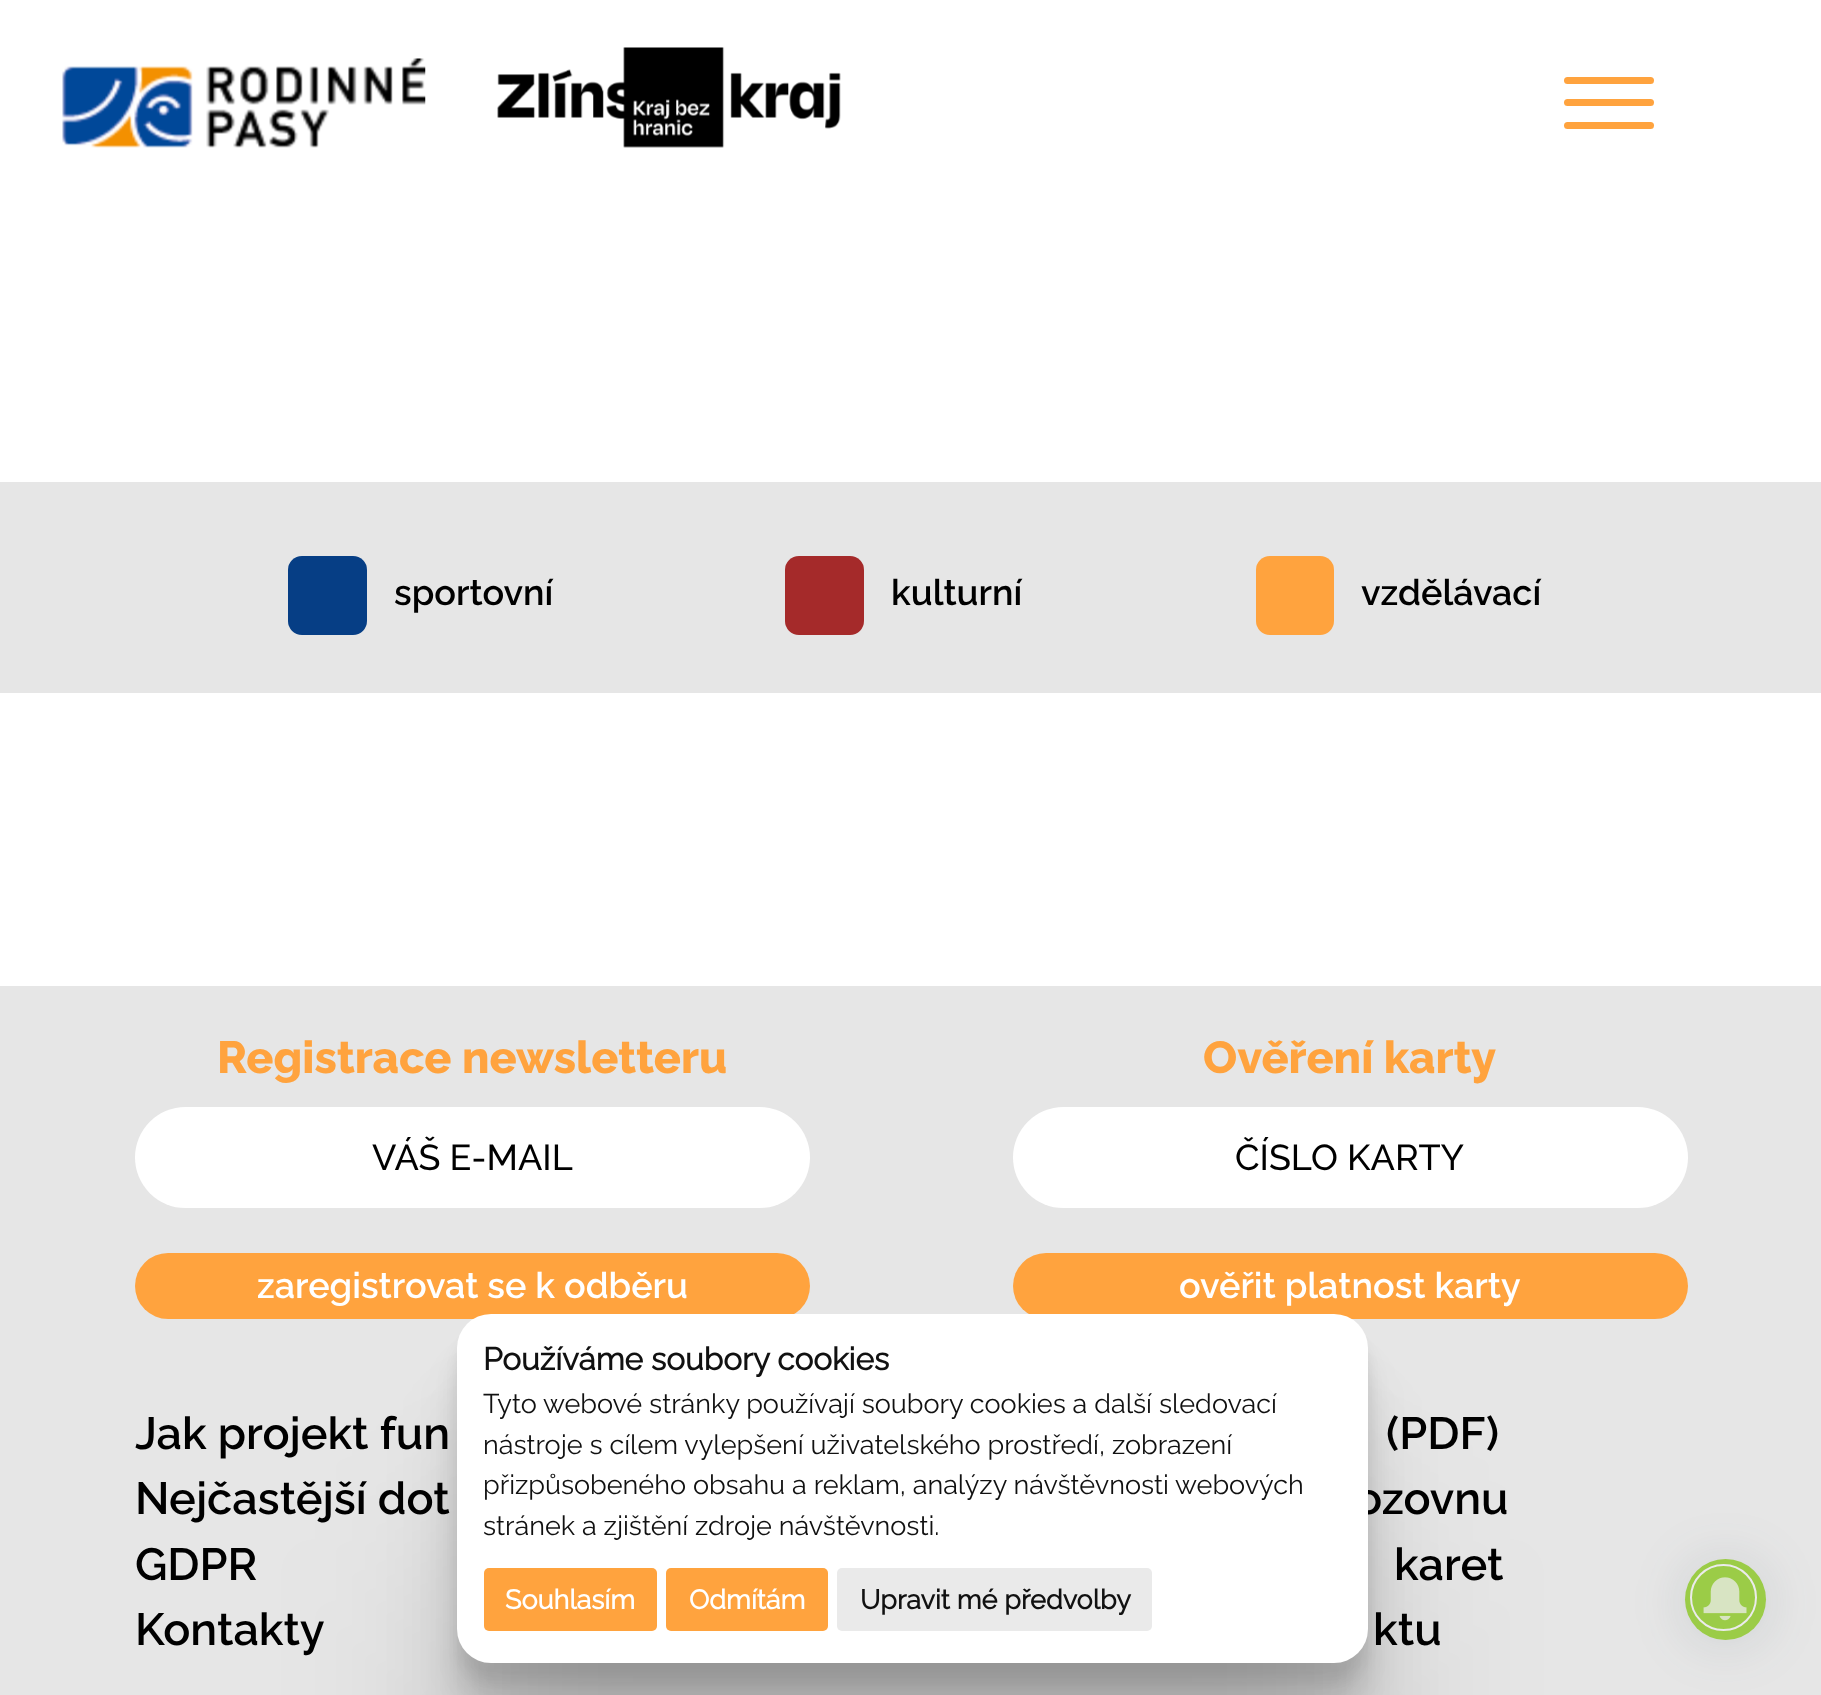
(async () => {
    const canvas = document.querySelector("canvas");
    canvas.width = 1821;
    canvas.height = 1695;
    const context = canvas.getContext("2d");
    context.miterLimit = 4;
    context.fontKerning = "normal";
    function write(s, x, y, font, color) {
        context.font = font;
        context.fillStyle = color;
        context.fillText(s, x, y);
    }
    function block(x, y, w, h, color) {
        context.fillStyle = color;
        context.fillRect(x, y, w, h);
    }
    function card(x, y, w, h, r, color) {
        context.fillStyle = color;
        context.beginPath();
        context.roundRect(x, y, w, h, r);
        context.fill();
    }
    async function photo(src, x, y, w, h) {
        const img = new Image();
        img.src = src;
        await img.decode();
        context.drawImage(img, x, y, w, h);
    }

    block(0, 0, 1821, 1695, "rgb(255, 255, 255)");
    await photo("media/1.png", 62, 58, 364, 90);
    await photo("media/2.png", 497, 47, 344, 101);
    card(1564, 77, 90, 7, 3.5, "rgb(255, 163, 62)");
    card(1564, 99, 90, 7, 3.5, "rgb(255, 163, 62)");
    card(1564, 122, 90, 7, 3.5, "rgb(255, 163, 62)");
    block(0, 482, 1821, 211, "rgb(230, 230, 230)");
    card(288, 556, 79, 79, 14, "rgb(6, 62, 133)");
    write("sportovní", 394, 605, "600 36px Raleway", "rgb(0, 0, 0)");
    card(785, 556, 79, 79, 14, "rgb(165, 42, 42)");
    write("kulturní", 891, 605, "600 36px Raleway", "rgb(0, 0, 0)");
    card(1256, 556, 78, 79, 14, "rgb(255, 163, 62)");
    write("vzdělávací", 1361, 605, "600 36px Raleway", "rgb(0, 0, 0)");
    block(0, 986, 1821, 709, "rgb(230, 230, 230)");
    write("Registrace newsletteru", 217, 1073, "800 45px Raleway", "rgb(255, 163, 62)");
    card(135, 1107, 675, 101, 50.5, "rgb(255, 255, 255)");
    write("VÁŠ E-MAIL", 372, 1170, "500 36px Raleway", "rgb(0, 0, 0)");
    card(135, 1253, 675, 66, 33, "rgb(255, 163, 62)");
    write("zaregistrovat se k odběru", 257, 1298, "600 36px Raleway", "rgb(255, 255, 255)");
    write("Ověření karty", 1203, 1073, "800 45px Raleway", "rgb(255, 163, 62)");
    card(1013, 1107, 675, 101, 50.5, "rgb(255, 255, 255)");
    write("ČÍSLO KARTY", 1235, 1170, "500 36px Raleway", "rgb(0, 0, 0)");
    card(1013, 1253, 675, 66, 33, "rgb(255, 163, 62)");
    write("ověřit platnost karty", 1179, 1298, "600 36px Raleway", "rgb(255, 255, 255)");
    write("Jak projekt fun", 135, 1449, "600 45px Raleway", "rgb(0, 0, 0)");
    write("Nejčastější dot", 135, 1514, "600 45px Raleway", "rgb(0, 0, 0)");
    write("GDPR", 135, 1580, "600 45px Raleway", "rgb(0, 0, 0)");
    write("Kontakty", 135, 1645, "600 45px Raleway", "rgb(0, 0, 0)");
    write("(PDF)", 1386, 1449, "600 45px Raleway", "rgb(0, 0, 0)");
    write("ozovnu", 1355, 1514, "600 45px Raleway", "rgb(0, 0, 0)");
    write("karet", 1394, 1580, "600 45px Raleway", "rgb(0, 0, 0)");
    write("ktu", 1373, 1645, "600 45px Raleway", "rgb(0, 0, 0)");
    context.fillStyle = "rgba(0, 0, 0, 0.12)";
    context.filter = "blur(90px)";
    context.beginPath();
    context.roundRect(457, 1539, 911, 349, 34);
    context.fill();
    context.filter = "none";
    context.fillStyle = "rgba(0, 0, 0, 0.09)";
    context.filter = "blur(37.5px)";
    context.beginPath();
    context.roundRect(457, 1409, 911, 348, 34);
    context.fill();
    context.filter = "none";
    context.fillStyle = "rgba(0, 0, 0, 0.07)";
    context.filter = "blur(20px)";
    context.beginPath();
    context.roundRect(457, 1364, 911, 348, 34);
    context.fill();
    context.filter = "none";
    context.fillStyle = "rgba(0, 0, 0, 0.06)";
    context.filter = "blur(11px)";
    context.beginPath();
    context.roundRect(457, 1343, 911, 349, 34);
    context.fill();
    context.filter = "none";
    context.fillStyle = "rgba(0, 0, 0, 0.05)";
    context.filter = "blur(6px)";
    context.beginPath();
    context.roundRect(457, 1330, 911, 349, 34);
    context.fill();
    context.filter = "none";
    card(457, 1314, 911, 349, 34, "rgb(255, 255, 255)");
    write("Používáme soubory cookies", 483, 1370, "bold 31.5px Raleway", "rgb(17, 17, 17)");
    write("Tyto webové stránky používají soubory cookies a další sledovací", 483, 1413, "27px Raleway", "rgb(17, 17, 17)");
    write("nástroje s cílem vylepšení uživatelského prostředí, zobrazení", 483, 1454, "27px Raleway", "rgb(17, 17, 17)");
    write("přizpůsobeného obsahu a reklam, analýzy návštěvnosti webových", 483, 1494, "27px Raleway", "rgb(17, 17, 17)");
    write("stránek a zjištění zdroje návštěvnosti.", 483, 1535, "27px Raleway", "rgb(17, 17, 17)");
    card(484, 1568, 173, 63, 5, "rgb(255, 163, 62)");
    write("Souhlasím", 505, 1609, "bold 27px Raleway", "rgb(255, 255, 255)");
    card(666, 1568, 162, 63, 5, "rgb(255, 163, 62)");
    write("Odmítám", 689, 1609, "bold 27px Raleway", "rgb(255, 255, 255)");
    card(837, 1568, 315, 63, 5, "rgb(234, 234, 234)");
    write("Upravit mé předvolby", 860, 1609, "bold 27px Raleway", "rgb(17, 17, 17)");
    context.fillStyle = "rgba(61, 78, 91, 0.15)";
    context.filter = "blur(27px)";
    context.beginPath();
    context.roundRect(1685, 1562, 81, 81, 40.5);
    context.fill();
    context.filter = "none";
    context.fillStyle = "rgb(155, 204, 71)";
    context.beginPath();
    context.arc(1725.5, 1599.5, 40.5, 0, Math.PI * 2);
    context.fill();
    context.beginPath();
    context.arc(1723.5, 1597.5, 32.5, 0, Math.PI * 2);
    context.strokeStyle = "rgb(235, 235, 235)";
    context.lineWidth = 2;
    context.stroke();
    await photo("media/3.png", 1703, 1577, 44, 44);
})();
